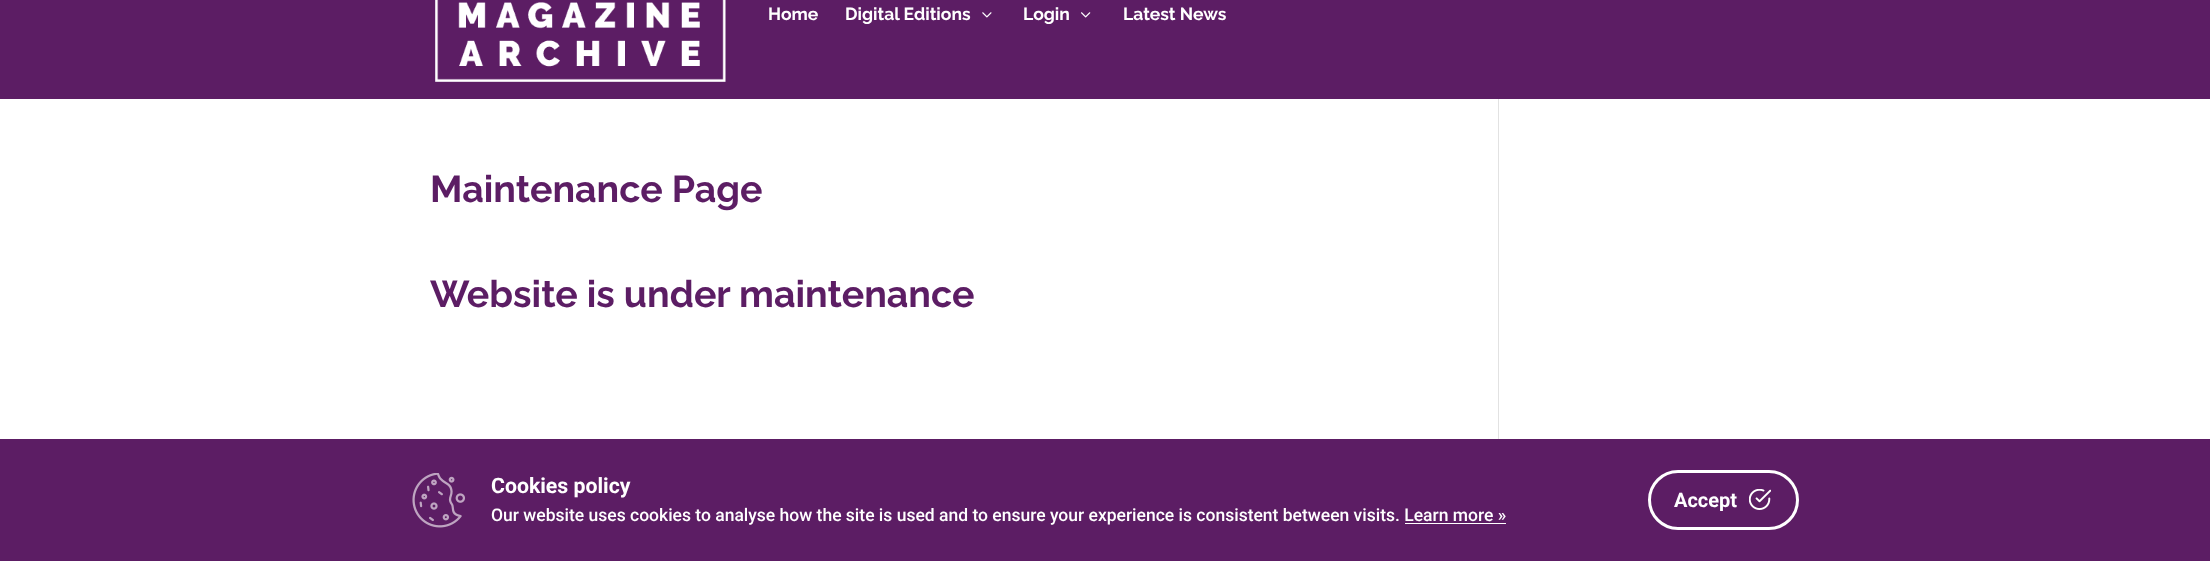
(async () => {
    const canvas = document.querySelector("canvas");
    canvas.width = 2210;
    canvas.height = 561;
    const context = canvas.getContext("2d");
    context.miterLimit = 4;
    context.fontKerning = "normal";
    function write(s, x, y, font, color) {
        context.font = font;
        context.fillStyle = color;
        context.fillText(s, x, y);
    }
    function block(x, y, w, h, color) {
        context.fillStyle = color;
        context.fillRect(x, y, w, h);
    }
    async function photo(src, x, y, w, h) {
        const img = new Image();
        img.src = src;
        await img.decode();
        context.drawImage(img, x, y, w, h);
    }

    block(0, 0, 2210, 561, "rgb(255, 255, 255)");
    block(0, 0, 2210, 99, "rgb(92, 29, 100)");
    await photo("media/1.png", 435, 0, 291, 82);
    write("Home", 768, 20, "bold 17.5px Raleway", "rgb(255, 255, 255)");
    write("Digital Editions", 845, 20, "bold 17.5px Raleway", "rgb(255, 255, 255)");
    await photo("media/2.png", 982, 12, 10, 6);
    write("Login", 1023, 20, "bold 17.5px Raleway", "rgb(255, 255, 255)");
    await photo("media/3.png", 1081, 12, 10, 6);
    write("Latest News", 1123, 20, "bold 17.5px Raleway", "rgb(255, 255, 255)");
    write("Maintenance Page", 430, 202, "bold 37.5px Raleway", "rgb(92, 29, 100)");
    write("Website is under maintenance", 430, 307, "bold 37.5px Raleway", "rgb(92, 29, 100)");
    block(1498, 99, 1, 340, "rgb(226, 226, 226)");
    block(0, 439, 2210, 122, "rgb(92, 29, 100)");
    await photo("media/4.png", 412, 473, 53, 55);
    write("Cookies policy", 491, 493, "bold 21.25px Roboto", "rgb(255, 255, 255)");
    write("Our website uses cookies to analyse how the site is used and to ensure your experience is consistent between visits. Learn more »", 491, 521, "500 17.5px Roboto", "rgb(255, 255, 255)");
    block(1405, 523, 101, 1, "rgb(255, 255, 255)");
    context.beginPath();
    context.roundRect(1649.5, 471.5, 148, 57, 28.5);
    context.strokeStyle = "rgb(255, 255, 255)";
    context.lineWidth = 3;
    context.stroke();
    write("Accept", 1674, 507, "bold 20px Roboto", "rgb(255, 255, 255)");
    await photo("media/5.png", 1749, 489, 22, 21);
})();
